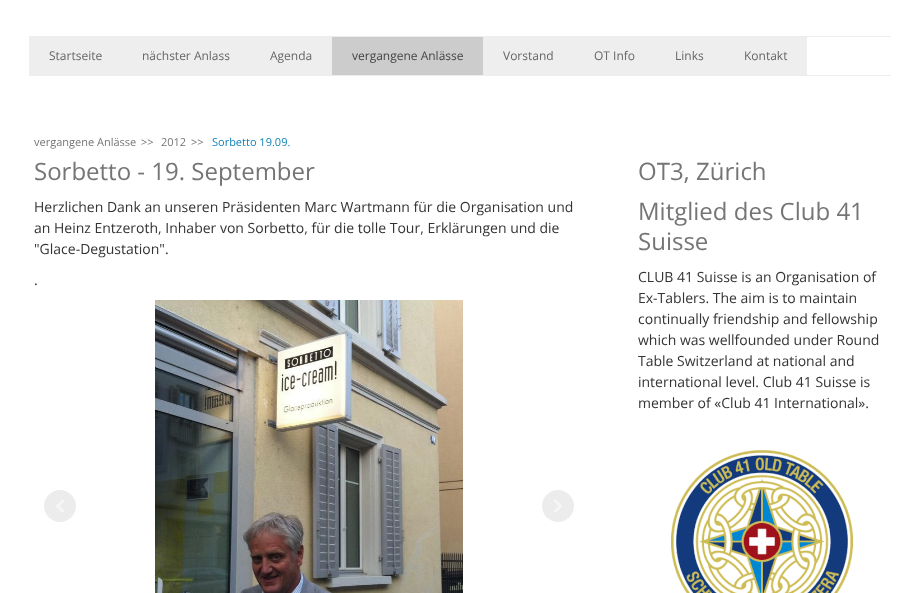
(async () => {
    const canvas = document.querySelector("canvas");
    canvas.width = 920;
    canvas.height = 593;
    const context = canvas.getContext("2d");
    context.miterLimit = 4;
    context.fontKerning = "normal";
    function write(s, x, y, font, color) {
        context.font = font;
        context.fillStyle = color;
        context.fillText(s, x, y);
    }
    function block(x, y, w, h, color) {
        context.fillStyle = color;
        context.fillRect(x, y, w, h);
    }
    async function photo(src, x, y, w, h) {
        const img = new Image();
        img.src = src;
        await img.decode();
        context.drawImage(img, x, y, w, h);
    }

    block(0, 0, 920, 593, "rgb(255, 255, 255)");
    block(29, 36, 862, 1, "rgb(237, 237, 237)");
    block(29, 75, 862, 1, "rgb(237, 237, 237)");
    block(29, 37, 303, 38, "rgb(238, 238, 238)");
    write("Startseite", 49, 60, "12px Open Sans", "rgb(102, 102, 102)");
    write("nächster Anlass", 142, 60, "12px Open Sans", "rgb(102, 102, 102)");
    write("Agenda", 270, 60, "12px Open Sans", "rgb(102, 102, 102)");
    block(332, 37, 151, 38, "rgb(204, 204, 204)");
    write("vergangene Anlässe", 352, 60, "12px Open Sans", "rgb(68, 68, 68)");
    block(483, 37, 324, 38, "rgb(238, 238, 238)");
    write("Vorstand", 503, 60, "12px Open Sans", "rgb(102, 102, 102)");
    write("OT Info", 594, 60, "12px Open Sans", "rgb(102, 102, 102)");
    write("Links", 675, 60, "12px Open Sans", "rgb(102, 102, 102)");
    write("Kontakt", 744, 60, "12px Open Sans", "rgb(102, 102, 102)");
    write("vergangene Anlässe", 34, 146, "11px Open Sans", "rgb(117, 117, 117)");
    write(">>", 141, 146, "11px Open Sans", "rgb(117, 117, 117)");
    write("2012", 161, 146, "11px Open Sans", "rgb(117, 117, 117)");
    write(">>", 191, 146, "11px Open Sans", "rgb(117, 117, 117)");
    write("Sorbetto 19.09.", 212, 146, "11px Open Sans", "rgb(19, 130, 185)");
    write("Sorbetto - 19. September", 34, 180, "24px Open Sans", "rgb(117, 117, 117)");
    write("Herzlichen Dank an unseren Präsidenten Marc Wartmann für die Organisation und", 34, 212, "14px Open Sans", "rgb(51, 51, 51)");
    write("an Heinz Entzeroth, Inhaber von Sorbetto, für die tolle Tour, Erklärungen und die", 34, 233, "14px Open Sans", "rgb(51, 51, 51)");
    write("\"Glace-Degustation\".", 34, 254, "14px Open Sans", "rgb(51, 51, 51)");
    write(".", 34, 285, "14px Open Sans", "rgb(51, 51, 51)");
    await photo("media/1.png", 155, 300, 308, 293);
    context.fillStyle = "rgb(236, 236, 236)";
    context.beginPath();
    context.arc(60, 506, 16, 0, Math.PI * 2);
    context.fill();
    await photo("media/2.png", 56, 499, 8, 14);
    context.beginPath();
    context.arc(558, 506, 16, 0, Math.PI * 2);
    context.fill();
    await photo("media/3.png", 554, 499, 8, 14);
    write("OT3, Zürich", 638, 180, "24px Open Sans", "rgb(117, 117, 117)");
    write("Mitglied des Club 41", 638, 220, "24px Open Sans", "rgb(117, 117, 117)");
    write("Suisse", 638, 250, "24px Open Sans", "rgb(117, 117, 117)");
    write("CLUB 41 Suisse is an Organisation of", 638, 282, "14px Open Sans", "rgb(51, 51, 51)");
    write("Ex-Tablers. The aim is to maintain", 638, 303, "14px Open Sans", "rgb(51, 51, 51)");
    write("continually friendship and fellowship", 638, 324, "14px Open Sans", "rgb(51, 51, 51)");
    write("which was wellfounded under Round", 638, 345, "14px Open Sans", "rgb(51, 51, 51)");
    write("Table Switzerland at national and", 638, 366, "14px Open Sans", "rgb(51, 51, 51)");
    write("international level. Club 41 Suisse is", 638, 387, "14px Open Sans", "rgb(51, 51, 51)");
    write("member of «Club 41 International».", 638, 408, "14px Open Sans", "rgb(51, 51, 51)");
    await photo("media/4.png", 671, 450, 182, 143);
})();
